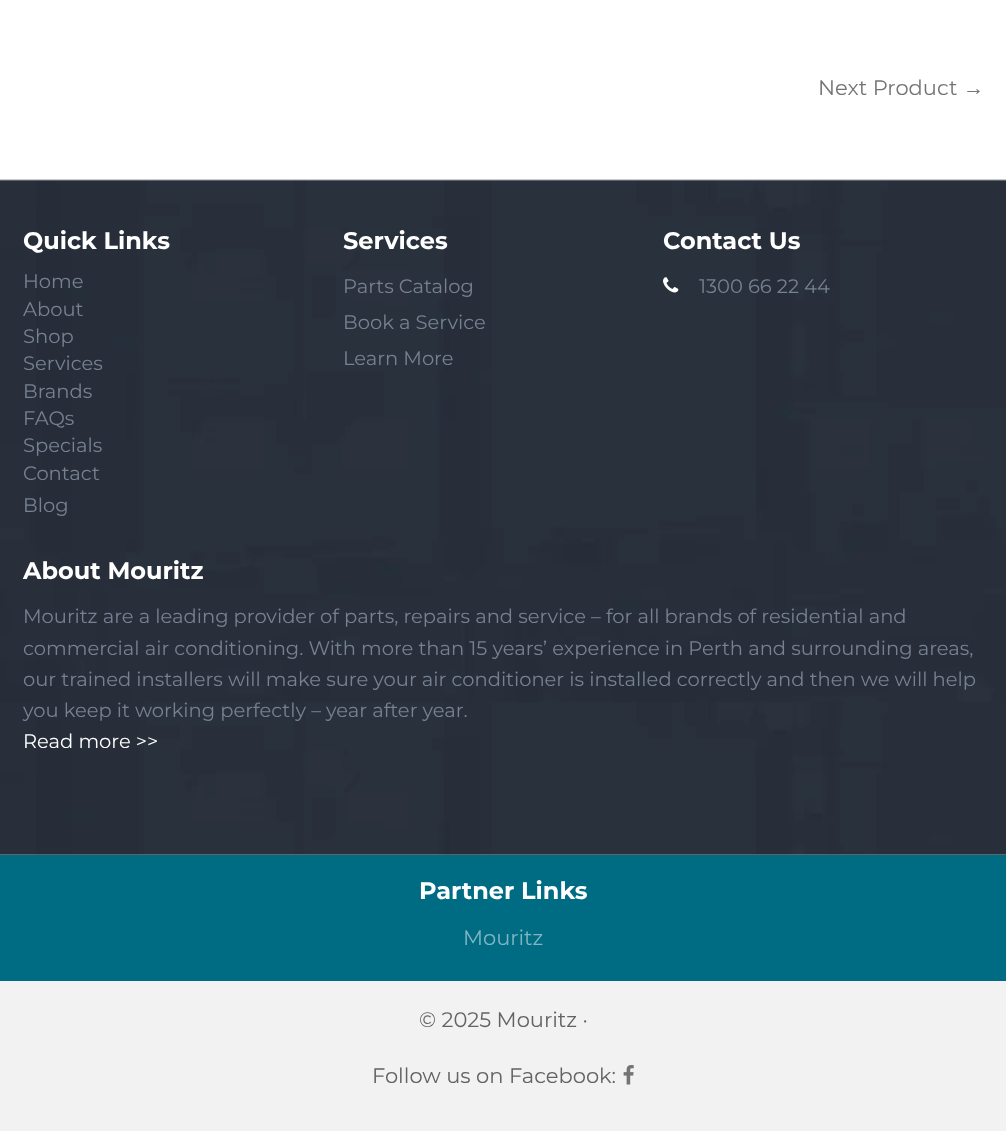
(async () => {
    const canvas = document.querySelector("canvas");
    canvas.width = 1006;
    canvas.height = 1131;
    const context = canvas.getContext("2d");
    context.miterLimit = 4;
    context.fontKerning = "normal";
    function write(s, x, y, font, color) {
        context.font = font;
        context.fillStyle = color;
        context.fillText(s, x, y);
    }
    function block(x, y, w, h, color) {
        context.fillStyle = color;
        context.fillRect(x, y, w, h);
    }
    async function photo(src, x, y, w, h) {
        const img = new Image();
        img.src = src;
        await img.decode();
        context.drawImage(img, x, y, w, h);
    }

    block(0, 0, 1006, 1131, "rgb(255, 255, 255)");
    write("Next Product", 818, 95, "21px Montserrat", "rgb(116, 116, 116)");
    write("→", 963, 95, "21px Liberation Sans", "rgb(116, 116, 116)");
    await photo("media/1.png", 0, 179, 1006, 676);
    write("Quick Links", 23, 249, "bold 24px Montserrat", "rgb(255, 255, 255)");
    write("Home", 23, 288, "19.5px Montserrat", "rgb(118, 129, 145)");
    write("About", 23, 316, "19.5px Montserrat", "rgb(118, 129, 145)");
    write("Shop", 23, 343, "19.5px Montserrat", "rgb(118, 129, 145)");
    write("Services", 23, 370, "19.5px Montserrat", "rgb(118, 129, 145)");
    write("Brands", 23, 398, "19.5px Montserrat", "rgb(118, 129, 145)");
    write("FAQs", 23, 425, "19.5px Montserrat", "rgb(118, 129, 145)");
    write("Specials", 23, 452, "19.5px Montserrat", "rgb(118, 129, 145)");
    write("Contact", 23, 480, "19.5px Montserrat", "rgb(118, 129, 145)");
    write("Blog", 23, 512, "19.5px Montserrat", "rgb(118, 129, 145)");
    write("Services", 343, 249, "bold 24px Montserrat", "rgb(255, 255, 255)");
    write("Parts Catalog", 343, 293, "19.5px Montserrat", "rgb(118, 129, 145)");
    write("Book a Service", 343, 329, "19.5px Montserrat", "rgb(118, 129, 145)");
    write("Learn More", 343, 365, "19.5px Montserrat", "rgb(118, 129, 145)");
    write("Contact Us", 663, 249, "bold 24px Montserrat", "rgb(255, 255, 255)");
    await photo("media/2.png", 663, 277, 16, 16);
    write("1300 66 22 44", 699, 293, "19.5px Montserrat", "rgb(118, 129, 145)");
    write("About Mouritz", 23, 579, "bold 24px Montserrat", "rgb(255, 255, 255)");
    write("Mouritz are a leading provider of parts, repairs and service – for all brands of residential and", 23, 623, "19.5px Montserrat", "rgb(118, 129, 145)");
    write("commercial air conditioning. With more than 15 years’ experience in Perth and surrounding areas,", 23, 655, "19.5px Montserrat", "rgb(118, 129, 145)");
    write("our trained installers will make sure your air conditioner is installed correctly and then we will help", 23, 686, "19.5px Montserrat", "rgb(118, 129, 145)");
    write("you keep it working perfectly – year after year.", 23, 717, "19.5px Montserrat", "rgb(118, 129, 145)");
    write("Read more >>", 23, 748, "19.5px Montserrat", "rgb(255, 255, 255)");
    block(0, 855, 1006, 126, "rgb(0, 108, 132)");
    write("Partner Links", 419, 899, "bold 24px Montserrat", "rgb(255, 255, 255)");
    write("Mouritz", 463, 945, "21px Montserrat", "rgb(128, 182, 194)");
    block(0, 981, 1006, 150, "rgb(242, 242, 242)");
    write("© 2025 Mouritz ·", 419, 1027, "21px Montserrat", "rgb(99, 99, 99)");
    write("Follow us on Facebook:", 372, 1083, "21px Montserrat", "rgb(99, 99, 99)");
    await photo("media/3.png", 623, 1065, 11, 20);
})();
